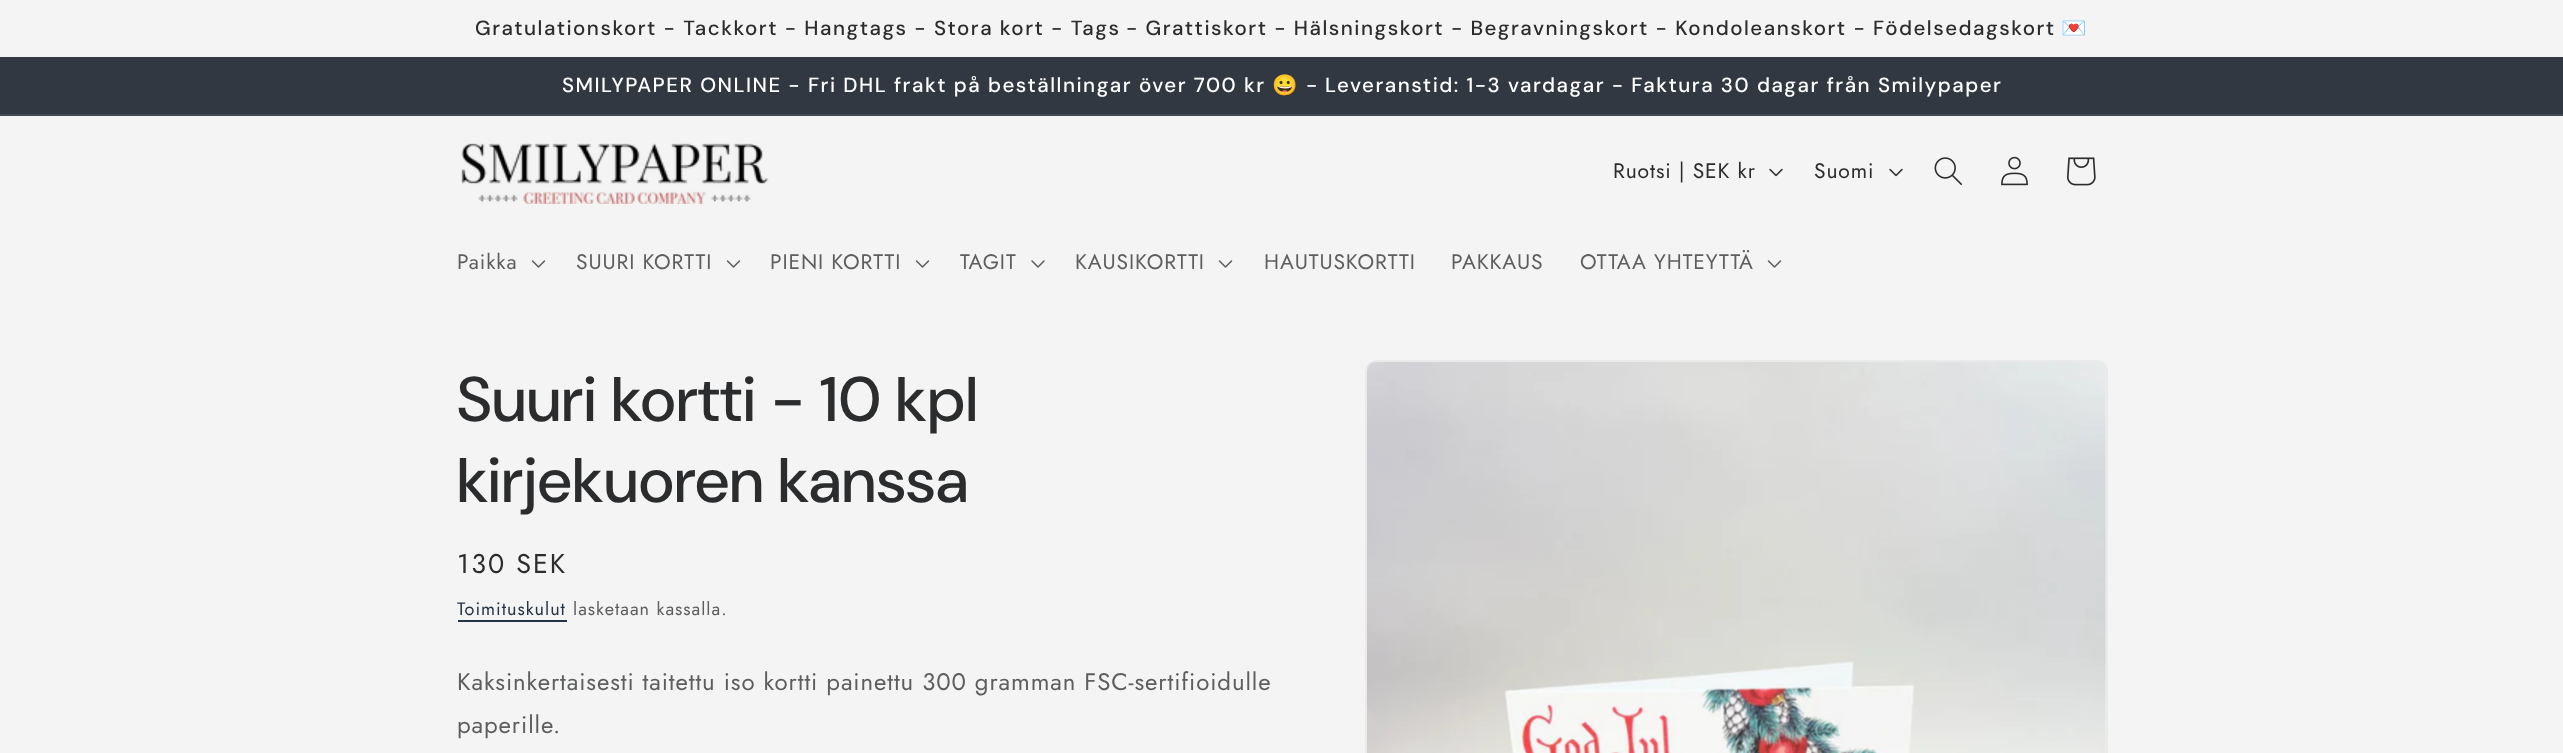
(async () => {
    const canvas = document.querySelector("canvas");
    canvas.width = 2563;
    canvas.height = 753;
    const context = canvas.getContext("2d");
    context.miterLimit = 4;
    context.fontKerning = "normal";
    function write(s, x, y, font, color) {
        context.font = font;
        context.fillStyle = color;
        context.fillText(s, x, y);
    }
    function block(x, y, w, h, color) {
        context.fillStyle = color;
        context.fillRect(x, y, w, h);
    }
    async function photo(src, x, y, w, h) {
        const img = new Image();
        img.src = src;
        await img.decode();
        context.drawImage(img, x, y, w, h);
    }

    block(0, 0, 2563, 753, "rgb(244, 244, 244)");
    context.letterSpacing = "1.5px";
    write("Gratulationskort - Tackkort - Hangtags - Stora kort - Tags", 475, 35, "500 20.5px 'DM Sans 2'", "rgb(43, 44, 45)");
    write("- Grattiskort - Hälsningskort - Begravningskort - Kondoleanskort - Födelsedagskort", 1126, 35, "500 20.5px 'DM Sans 2'", "rgb(43, 44, 45)");
    write("💌", 2061, 35, "20.5px Noto Color Emoji", "rgb(43, 44, 45)");
    block(0, 57, 2563, 57, "rgb(50, 56, 65)");
    block(0, 114, 2563, 2, "rgb(66, 72, 80)");
    write("SMILYPAPER ONLINE - Fri DHL frakt på beställningar över 700 kr", 562, 92, "500 20.5px 'DM Sans 2'", "rgb(255, 255, 255)");
    write("😀", 1272, 92, "20.5px Noto Color Emoji", "rgb(255, 255, 255)");
    write("-", 1306, 92, "500 20.5px 'DM Sans 2'", "rgb(255, 255, 255)");
    write("Leveranstid: 1-3 vardagar - Faktura 30 dagar från Smilypaper", 1325, 92, "500 20.5px 'DM Sans 2'", "rgb(255, 255, 255)");
    await photo("media/1.png", 461, 143, 308, 61);
    context.letterSpacing = "0.9px";
    write("Ruotsi | SEK kr", 1613, 178, "21px Jost", "rgb(43, 44, 45)");
    await photo("media/2.png", 1769, 168, 14, 9);
    write("Suomi", 1814, 178, "21px Jost", "rgb(43, 44, 45)");
    await photo("media/2.png", 1889, 168, 14, 9);
    await photo("media/3.png", 1934, 157, 28, 28);
    await photo("media/4.png", 2001, 156, 27, 30);
    await photo("media/5.png", 2067, 157, 29, 29);
    write("Paikka", 457, 269, "21px Jost", "rgb(93, 94, 95)");
    await photo("media/6.png", 531, 260, 15, 8);
    write("SUURI KORTTI", 576, 269, "21px Jost", "rgb(93, 94, 95)");
    await photo("media/6.png", 726, 260, 15, 8);
    write("PIENI KORTTI", 770, 269, "21px Jost", "rgb(93, 94, 95)");
    await photo("media/6.png", 915, 260, 15, 8);
    write("TAGIT", 960, 269, "21px Jost", "rgb(93, 94, 95)");
    await photo("media/7.png", 1031, 260, 14, 8);
    write("KAUSIKORTTI", 1075, 269, "21px Jost", "rgb(93, 94, 95)");
    await photo("media/6.png", 1218, 260, 15, 8);
    write("HAUTUSKORTTI", 1264, 269, "21px Jost", "rgb(93, 94, 95)");
    write("PAKKAUS", 1451, 269, "21px Jost", "rgb(93, 94, 95)");
    write("OTTAA YHTEYTTÄ", 1580, 269, "21px Jost", "rgb(93, 94, 95)");
    await photo("media/6.png", 1767, 260, 15, 8);
    context.letterSpacing = "0.95px";
    write("Suuri kortti - 10 kpl", 457, 421, "500 63px DM Sans", "rgb(43, 44, 45)");
    write("kirjekuoren kanssa", 457, 502, "500 63px DM Sans", "rgb(43, 44, 45)");
    context.letterSpacing = "2px";
    write("130 SEK", 457, 573, "27px Jost", "rgb(43, 44, 45)");
    context.letterSpacing = "1px";
    write("Toimituskulut", 457, 615, "18px Jost", "rgb(37, 51, 71)");
    block(458, 620, 109, 2, "rgb(37, 51, 71)");
    write("lasketaan kassalla.", 573, 615, "18px Jost", "rgb(93, 94, 95)");
    context.letterSpacing = "0.9px";
    write("Kaksinkertaisesti taitettu iso kortti painettu 300 gramman FSC-sertifioidulle", 457, 690, "24px Jost", "rgb(93, 94, 95)");
    write("paperille.", 457, 733, "24px Jost", "rgb(93, 94, 95)");
    context.beginPath();
    context.roundRect(1366, 361, 741, 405, 11);
    context.strokeStyle = "rgb(234, 234, 234)";
    context.lineWidth = 2;
    context.stroke();
    await photo("media/8.png", 1367, 362, 739, 391);
})();
